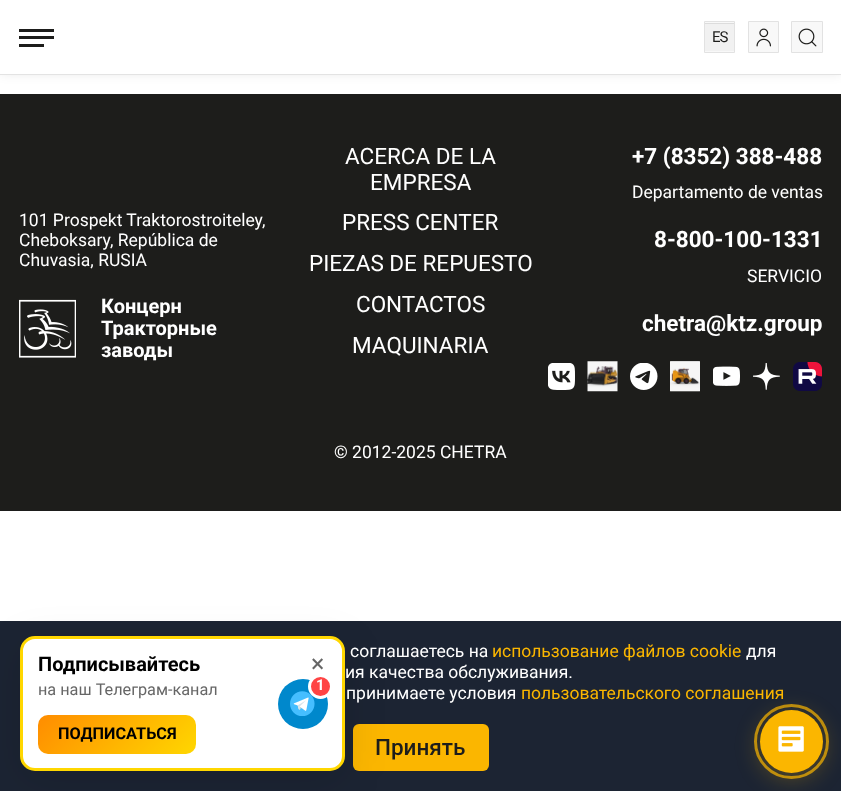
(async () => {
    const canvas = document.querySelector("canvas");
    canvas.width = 841;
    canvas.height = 791;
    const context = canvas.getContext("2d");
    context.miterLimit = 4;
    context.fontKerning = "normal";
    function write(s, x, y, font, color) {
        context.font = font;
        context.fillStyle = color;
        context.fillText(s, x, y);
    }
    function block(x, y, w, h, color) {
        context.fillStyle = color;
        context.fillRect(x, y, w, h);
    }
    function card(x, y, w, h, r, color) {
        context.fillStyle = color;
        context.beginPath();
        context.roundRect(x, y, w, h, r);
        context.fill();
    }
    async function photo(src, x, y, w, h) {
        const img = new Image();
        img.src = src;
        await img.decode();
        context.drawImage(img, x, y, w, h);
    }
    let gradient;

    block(0, 0, 841, 791, "rgb(255, 255, 255)");
    context.fillStyle = "rgba(0, 0, 0, 0.1)";
    context.filter = "blur(6px)";
    context.beginPath();
    context.rect(0, -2, 841, 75);
    context.fill();
    context.filter = "none";
    block(0, 0, 841, 74, "rgb(255, 255, 255)");
    block(0, 74, 841, 1, "rgb(227, 227, 227)");
    block(19, 29, 35, 3, "rgb(29, 29, 27)");
    block(19, 36, 35, 3, "rgb(29, 29, 27)");
    block(19, 44, 25, 3, "rgb(29, 29, 27)");
    context.fillStyle = "rgb(248, 248, 248)";
    context.beginPath();
    context.rect(704.5, 21.5, 30, 31);
    context.fill();
    context.strokeStyle = "rgb(226, 226, 226)";
    context.stroke();
    block(705, 24, 29, 27, "rgb(241, 241, 241)");
    context.save();
    context.beginPath();
    context.rect(705, 23, 29, 28);
    context.clip();
    context.strokeStyle = "rgb(220, 220, 220)";
    context.strokeRect(704.5, 23.5, 30, 30);
    context.restore();
    context.letterSpacing = "-1px";
    write("ES", 712, 42, "15px Roboto", "rgb(29, 29, 27)");
    context.fillStyle = "rgb(248, 248, 248)";
    context.beginPath();
    context.rect(748.5, 21.5, 30, 31);
    context.fill();
    context.stroke();
    await photo("media/1.png", 756, 28, 15, 19);
    context.beginPath();
    context.rect(791.5, 21.5, 31, 31);
    context.fill();
    context.stroke();
    await photo("media/2.png", 798, 28, 19, 19);
    block(0, 94, 841, 417, "rgb(29, 29, 27)");
    context.letterSpacing = "0px";
    write("101 Prospekt Traktorostroiteley,", 19, 226, "17.5px Roboto", "rgb(255, 255, 255)");
    write("Cheboksary, República de", 19, 246, "17.5px Roboto", "rgb(255, 255, 255)");
    write("Chuvasia, RUSIA", 19, 266, "17.5px Roboto", "rgb(255, 255, 255)");
    await photo("media/3.png", 19, 299, 57, 59);
    write("Концерн", 101, 313, "bold 20px Roboto", "rgb(255, 255, 255)");
    write("Тракторные", 101, 335, "bold 20px Roboto", "rgb(255, 255, 255)");
    write("заводы", 101, 357, "bold 20px Roboto", "rgb(255, 255, 255)");
    write("ACERCA DE LA", 345, 164, "22.5px Roboto", "rgb(255, 255, 255)");
    write("EMPRESA", 370, 190, "22.5px Roboto", "rgb(255, 255, 255)");
    write("PRESS CENTER", 342, 230, "22.5px Roboto", "rgb(255, 255, 255)");
    write("PIEZAS DE REPUESTO", 309, 271, "22.5px Roboto", "rgb(255, 255, 255)");
    write("CONTACTOS", 356, 312, "22.5px Roboto", "rgb(255, 255, 255)");
    write("MAQUINARIA", 352, 353, "22.5px Roboto", "rgb(255, 255, 255)");
    write("+7 (8352) 388-488", 632, 164, "bold 22.5px Roboto", "rgb(255, 255, 255)");
    write("Departamento de ventas", 632, 198, "17.5px Roboto", "rgb(255, 255, 255)");
    write("8-800-100-1331", 654, 247, "bold 22.5px Roboto", "rgb(255, 255, 255)");
    write("SERVICIO", 747, 282, "17.5px Roboto", "rgb(255, 255, 255)");
    write("chetra@ktz.group", 642, 331, "bold 22.5px Roboto", "rgb(255, 255, 255)");
    await photo("media/4.png", 548, 363, 27, 27);
    await photo("media/5.png", 587, 361, 31, 31);
    await photo("media/6.png", 630, 363, 28, 27);
    await photo("media/7.png", 670, 361, 30, 31);
    await photo("media/8.png", 713, 366, 27, 20);
    await photo("media/9.png", 753, 363, 27, 27);
    await photo("media/10.png", 793, 362, 29, 29);
    write("© 2012-2025 CHETRA", 334, 458, "17.5px Roboto", "rgb(255, 255, 255)");
    block(0, 621, 841, 170, "rgb(28, 36, 51)");
    card(353, 724, 136, 47, 6, "rgb(251, 182, 0)");
    context.fillStyle = "rgba(0, 0, 0, 0.12)";
    context.filter = "blur(20px)";
    context.beginPath();
    context.roundRect(20, 646, 325, 135, 15);
    context.fill();
    context.filter = "none";
    context.fillStyle = "rgb(255, 255, 255)";
    context.beginPath();
    context.roundRect(21.5, 637.5, 322, 132, 13.5);
    context.fill();
    context.strokeStyle = "rgb(255, 215, 0)";
    context.lineWidth = 3;
    context.stroke();
    write("Подписывайтесь", 38, 671, "bold 20px Roboto", "rgb(0, 0, 0)");
    write("на наш Телеграм-канал", 38, 695, "16.25px Roboto", "rgb(102, 102, 102)");
    gradient = context.createLinearGradient(68, 685, 166, 784);
    gradient.addColorStop(0, "rgb(255, 140, 0)");
    gradient.addColorStop(1, "rgb(255, 215, 0)");
    context.fillStyle = gradient;
    context.beginPath();
    context.roundRect(38, 715, 158, 39, 10);
    context.fill();
    write("ПОДПИСАТЬСЯ", 58, 739, "bold 16.25px Roboto", "rgb(0, 0, 0)");
    write("×", 311, 672, "25px Roboto", "rgb(102, 102, 102)");
    context.fillStyle = "rgb(0, 136, 204)";
    context.beginPath();
    context.arc(303, 704, 25, 0, Math.PI * 2);
    context.fill();
    await photo("media/11.png", 290, 691, 25, 25);
    context.fillStyle = "rgb(255, 68, 68)";
    context.beginPath();
    context.arc(320.5, 686.5, 11, 0, Math.PI * 2);
    context.fill();
    context.strokeStyle = "rgb(255, 255, 255)";
    context.stroke();
    write("1", 316, 690, "bold 15px Roboto", "rgb(255, 255, 255)");
    write("соглашаетесь на", 350, 657, "17.5px Roboto", "rgb(255, 255, 255)");
    write("использование файлов cookie", 492, 657, "17.5px Roboto", "rgb(251, 182, 0)");
    write("для", 746, 657, "17.5px Roboto", "rgb(255, 255, 255)");
    write("ия качества обслуживания.", 345, 678, "17.5px Roboto", "rgb(255, 255, 255)");
    write("принимаете условия", 346, 699, "17.5px Roboto", "rgb(255, 255, 255)");
    write("пользовательского соглашения", 521, 699, "17.5px Roboto", "rgb(251, 182, 0)");
    write("Принять", 375, 755, "500 22.5px Roboto", "rgb(29, 29, 27)");
    context.beginPath();
    context.arc(791.5, 741.5, 36, 0, Math.PI * 2);
    context.strokeStyle = "rgb(184, 138, 15)";
    context.stroke();
    context.fillStyle = "rgba(251, 182, 0, 0.3)";
    context.filter = "blur(12.5px)";
    context.beginPath();
    context.roundRect(760, 715, 63, 63, 31.5);
    context.fill();
    context.filter = "none";
    context.fillStyle = "rgb(251, 182, 0)";
    context.beginPath();
    context.arc(791.5, 741.5, 31.5, 0, Math.PI * 2);
    context.fill();
    await photo("media/12.png", 778, 726, 26, 26);
})();
